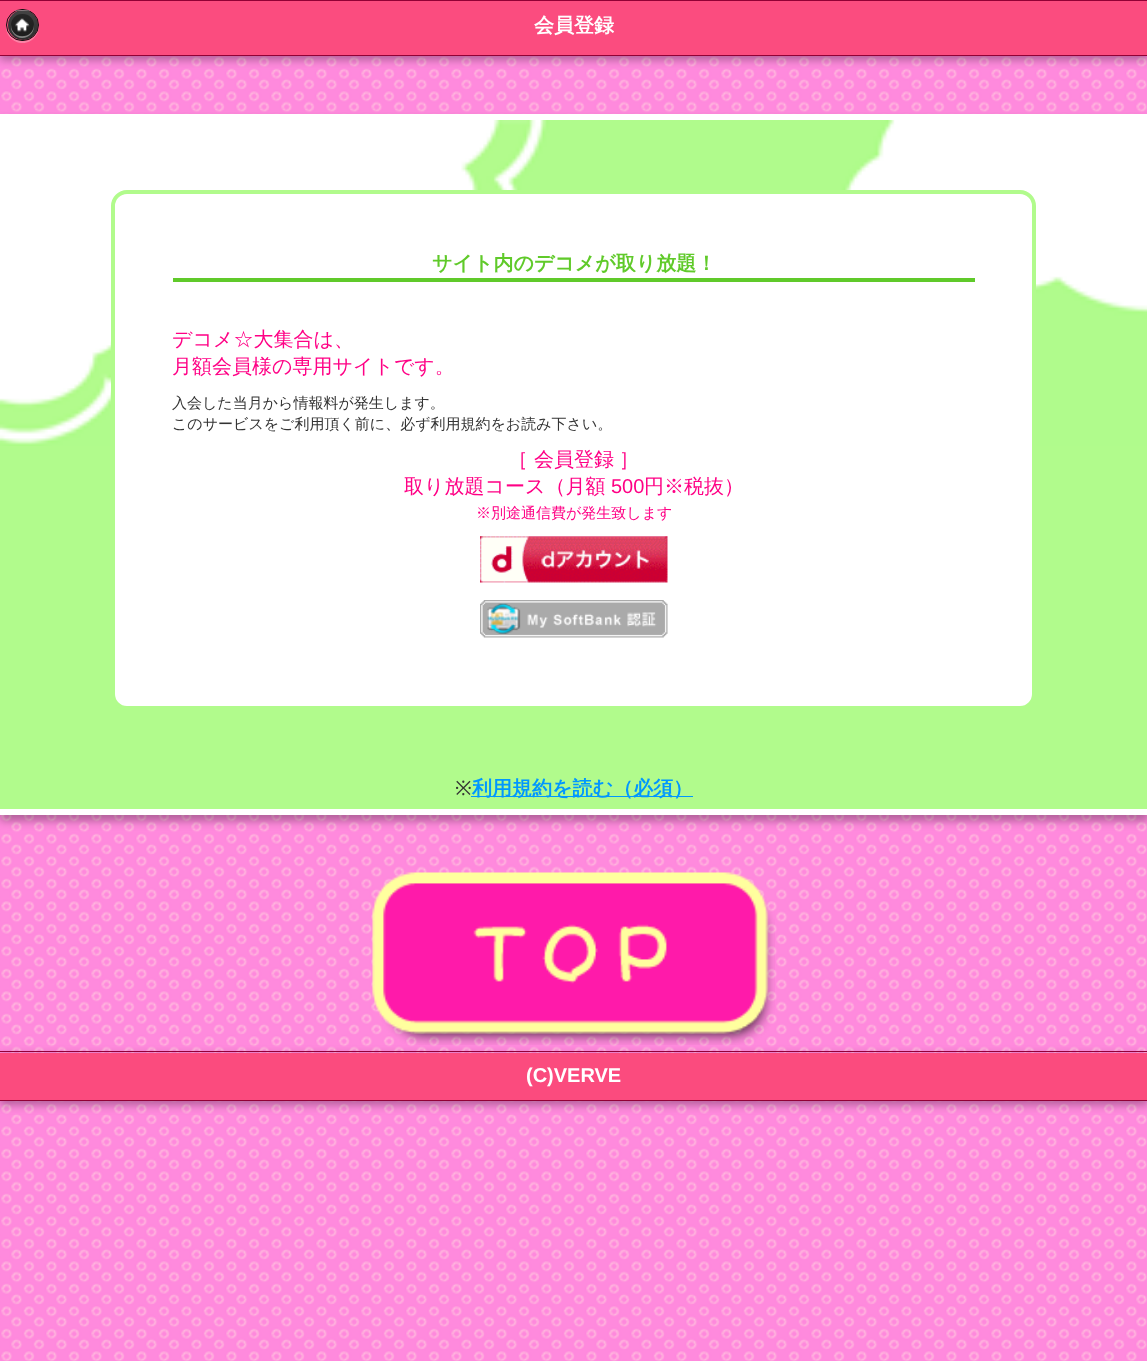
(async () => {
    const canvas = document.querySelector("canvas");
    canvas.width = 1147;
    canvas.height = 1361;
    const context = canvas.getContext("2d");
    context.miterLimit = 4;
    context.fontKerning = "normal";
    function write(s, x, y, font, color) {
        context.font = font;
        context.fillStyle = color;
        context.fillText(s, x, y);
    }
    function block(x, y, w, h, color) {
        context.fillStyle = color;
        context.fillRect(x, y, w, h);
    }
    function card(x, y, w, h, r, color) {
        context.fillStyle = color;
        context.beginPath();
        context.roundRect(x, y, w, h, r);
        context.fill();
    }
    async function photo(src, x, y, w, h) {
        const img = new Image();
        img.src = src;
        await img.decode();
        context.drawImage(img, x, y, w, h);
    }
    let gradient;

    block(0, 0, 1147, 1361, "rgb(255, 255, 255)");
    await photo("media/1.png", 0, 56, 1147, 1305);
    context.fillStyle = "rgba(0, 0, 0, 0.3)";
    context.filter = "blur(4px)";
    context.beginPath();
    context.rect(0, 4, 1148, 56);
    context.fill();
    context.filter = "none";
    block(0, 1, 1147, 54, "rgb(251, 76, 127)");
    block(0, 0, 1147, 1, "rgb(146, 0, 53)");
    block(0, 55, 1147, 1, "rgb(146, 0, 53)");
    context.fillStyle = "rgb(252, 130, 165)";
    context.beginPath();
    context.moveTo(6.5, 23);
    context.bezierCurveTo(2.5, 40.5, 26, 51, 36, 35.5);
    context.bezierCurveTo(38.5, 32, 39.5, 27.5, 38.5, 23);
    context.bezierCurveTo(39, 27, 38, 31, 36, 34);
    context.bezierCurveTo(26.5, 48, 4.5, 39.5, 6.5, 23);
    context.closePath();
    context.fill();
    gradient = context.createLinearGradient(23, 10, 23, 40);
    gradient.addColorStop(0, "rgb(68, 68, 68)");
    gradient.addColorStop(1, "rgb(45, 45, 45)");
    context.fillStyle = gradient;
    context.beginPath();
    context.arc(23, 25, 15, 0, Math.PI * 2);
    context.fill();
    context.beginPath();
    context.roundRect(6.5, 9.5, 32, 31, 15.5);
    context.strokeStyle = "rgb(17, 17, 17)";
    context.stroke();
    block(15, 10, 15, 1, "rgba(255, 255, 255, 0.3)");
    context.fillStyle = "rgba(255, 255, 255, 0.4)";
    context.beginPath();
    context.moveTo(11.5, 24);
    context.bezierCurveTo(10.5, 27, 11, 30.5, 13, 33);
    context.bezierCurveTo(20, 43.5, 36.5, 36, 33.5, 24);
    context.bezierCurveTo(35, 35.5, 19.5, 41, 13, 31.5);
    context.bezierCurveTo(11.5, 29, 11, 26.5, 11.5, 24);
    context.closePath();
    context.fill();
    card(11, 14, 23, 22, 11, "rgba(0, 0, 0, 0.4)");
    await photo("media/2.png", 15, 18, 15, 14);
    write("会員登録", 534, 32, "bold 20px WenQuanYi Zen Hei", "rgb(255, 255, 255)");
    context.fillStyle = "rgba(0, 0, 0, 0.3)";
    context.filter = "blur(4px)";
    context.beginPath();
    context.rect(0, 120, 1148, 701);
    context.fill();
    context.filter = "none";
    block(0, 446, 1147, 363, "rgb(177, 251, 140)");
    await photo("media/3.png", 0, 120, 1147, 326);
    block(0, 114, 1147, 6, "rgb(255, 255, 255)");
    block(0, 809, 1147, 6, "rgb(255, 255, 255)");
    context.beginPath();
    context.roundRect(113, 192, 921, 516, 14);
    context.fill();
    context.strokeStyle = "rgb(177, 251, 140)";
    context.lineWidth = 4;
    context.stroke();
    block(173, 278, 802, 4, "rgb(96, 202, 42)");
    write("サイト内のデコメが取り放題！", 432, 270, "bold 20px WenQuanYi Zen Hei", "rgb(96, 202, 42)");
    write("デコメ☆大集合は、", 172, 346, "500 20px WenQuanYi Zen Hei", "rgb(255, 0, 133)");
    write("月額会員様の専用サイトです。", 172, 373, "500 20px WenQuanYi Zen Hei", "rgb(255, 0, 133)");
    write("入会した当月から情報料が発生します。", 172, 408, "500 15px WenQuanYi Zen Hei", "rgb(51, 51, 51)");
    write("このサービスをご利用頂く前に、必ず利用規約をお読み下さい。", 172, 429, "500 15px WenQuanYi Zen Hei", "rgb(51, 51, 51)");
    write("［", 508, 466, "500 20px WenQuanYi Zen Hei", "rgb(255, 0, 133)");
    write("会員登録", 534, 466, "500 20px WenQuanYi Zen Hei", "rgb(255, 0, 133)");
    write("］", 619, 466, "500 20px WenQuanYi Zen Hei", "rgb(255, 0, 133)");
    write("取り放題コース（月額", 404, 493, "500 20px WenQuanYi Zen Hei", "rgb(255, 0, 133)");
    write("500", 611, 493, "20px Liberation Sans", "rgb(255, 0, 133)");
    write("円※税抜）", 644, 493, "500 20px WenQuanYi Zen Hei", "rgb(255, 0, 133)");
    write("※別途通信費が発生致します", 476, 518, "500 15px WenQuanYi Zen Hei", "rgb(255, 0, 133)");
    await photo("media/4.png", 480, 536, 188, 47);
    await photo("media/5.png", 480, 600, 188, 38);
    write("※", 455, 795, "20px Noto Sans", "rgb(51, 51, 51)");
    block(471, 796, 222, 1, "rgb(0, 151, 255)");
    write("利用規約を読む（必須）", 472, 795, "bold 20px WenQuanYi Zen Hei", "rgb(0, 151, 255)");
    await photo("media/6.png", 372, 872, 403, 173);
    context.fillStyle = "rgba(0, 0, 0, 0.3)";
    context.filter = "blur(4px)";
    context.beginPath();
    context.rect(0, 1055, 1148, 50);
    context.fill();
    context.filter = "none";
    block(0, 1053, 1147, 47, "rgb(251, 75, 126)");
    block(0, 1051, 1147, 1, "rgb(146, 0, 53)");
    block(0, 1100, 1147, 1, "rgb(146, 0, 53)");
    write("(C)VERVE", 526, 1082, "bold 20px Liberation Sans", "rgb(255, 255, 255)");
})();
